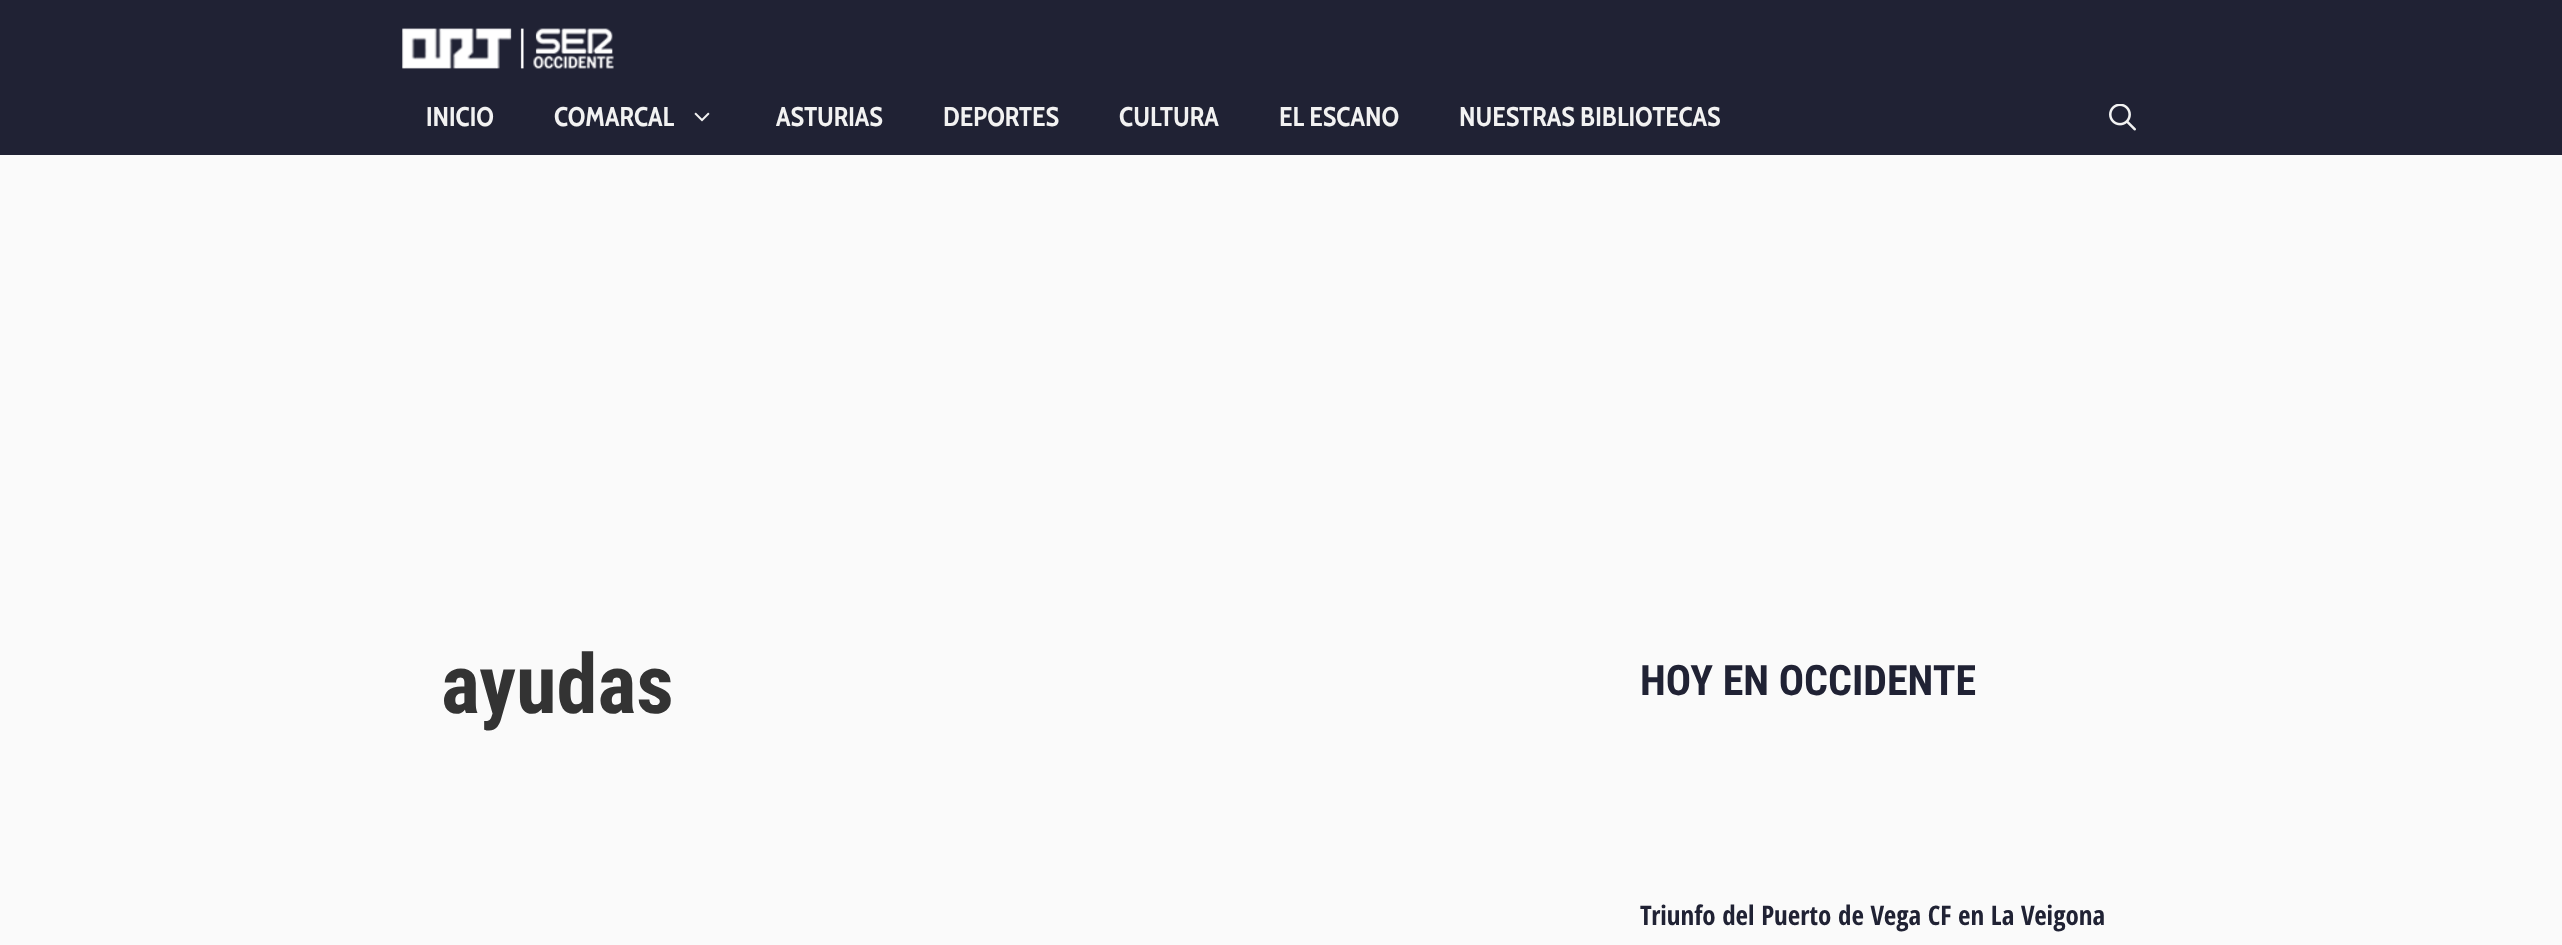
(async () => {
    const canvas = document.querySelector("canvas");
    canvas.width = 2562;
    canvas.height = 945;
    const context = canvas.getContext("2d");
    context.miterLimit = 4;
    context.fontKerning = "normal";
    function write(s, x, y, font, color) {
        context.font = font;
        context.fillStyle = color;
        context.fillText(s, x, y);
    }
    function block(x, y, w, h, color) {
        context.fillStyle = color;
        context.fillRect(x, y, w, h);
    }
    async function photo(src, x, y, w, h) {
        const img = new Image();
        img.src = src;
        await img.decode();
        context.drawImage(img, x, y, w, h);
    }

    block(0, 0, 2562, 945, "rgb(250, 250, 250)");
    block(0, 0, 2562, 155, "rgb(32, 34, 52)");
    await photo("media/1.png", 402, 28, 212, 41);
    write("INICIO", 426, 126, "bold 27px Cabin Condensed", "rgb(242, 242, 242)");
    write("COMARCAL", 554, 126, "bold 27px Cabin Condensed", "rgb(242, 242, 242)");
    await photo("media/2.png", 694, 112, 16, 10);
    write("ASTURIAS", 776, 126, "bold 27px Cabin Condensed", "rgb(242, 242, 242)");
    write("DEPORTES", 943, 126, "bold 27px Cabin Condensed", "rgb(242, 242, 242)");
    write("CULTURA", 1119, 126, "bold 27px Cabin Condensed", "rgb(242, 242, 242)");
    write("EL ESCANO", 1279, 126, "bold 27px Cabin Condensed", "rgb(242, 242, 242)");
    write("NUESTRAS BIBLIOTECAS", 1459, 126, "bold 27px Cabin Condensed", "rgb(242, 242, 242)");
    await photo("media/3.png", 2109, 104, 27, 27);
    write("ayudas", 441, 713, "bold 82.5px Roboto Condensed", "rgb(51, 51, 51)");
    write("HOY EN OCCIDENTE", 1640, 695, "bold 42px Roboto Condensed", "rgb(32, 34, 52)");
    write("Triunfo del Puerto de Vega CF en La Veigona", 1640, 925, "bold 27px Open Sans Condensed", "rgb(32, 34, 52)");
})();
